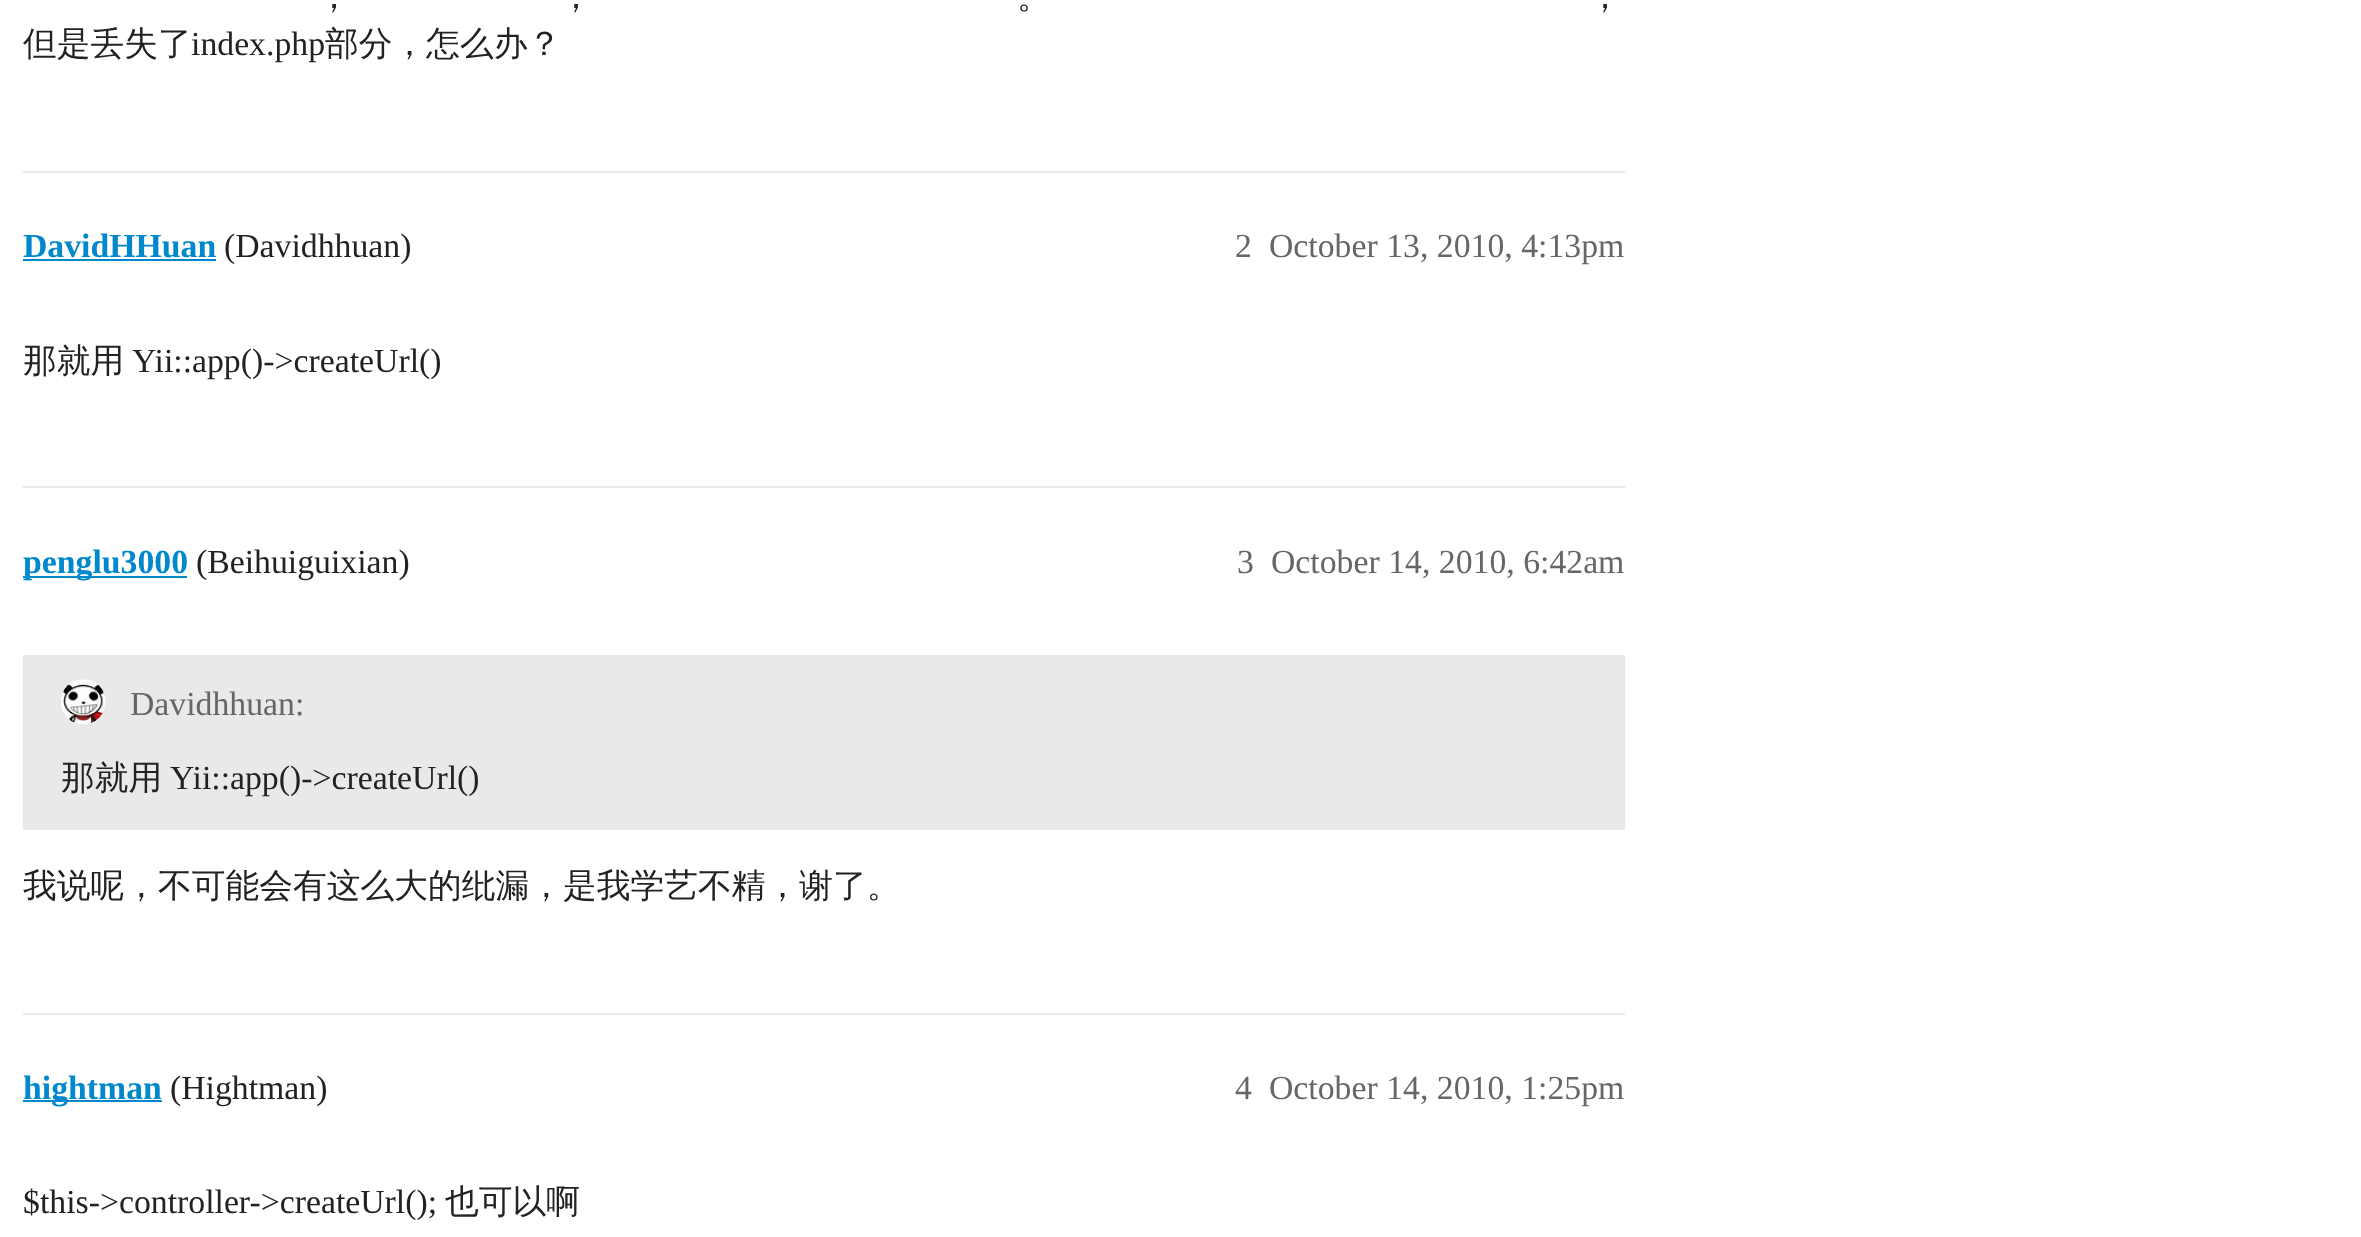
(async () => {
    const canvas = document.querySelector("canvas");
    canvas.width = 2361;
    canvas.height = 1237;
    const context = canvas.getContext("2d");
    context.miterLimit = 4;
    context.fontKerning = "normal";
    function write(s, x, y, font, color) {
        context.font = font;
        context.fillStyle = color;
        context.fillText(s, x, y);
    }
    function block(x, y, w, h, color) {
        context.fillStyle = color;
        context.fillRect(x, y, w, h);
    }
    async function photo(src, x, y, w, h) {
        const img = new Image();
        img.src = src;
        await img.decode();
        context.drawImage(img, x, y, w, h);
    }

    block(0, 0, 2361, 1237, "rgb(255, 255, 255)");
    write("，", 317, 8, "500 33.75px WenQuanYi Zen Hei", "rgb(34, 34, 34)");
    write("，", 559, 8, "500 33.75px WenQuanYi Zen Hei", "rgb(34, 34, 34)");
    write("。", 1017, 8, "500 33.75px WenQuanYi Zen Hei", "rgb(34, 34, 34)");
    write("，", 1588, 8, "500 33.75px WenQuanYi Zen Hei", "rgb(34, 34, 34)");
    write("但是丢失了", 23, 55, "500 33.75px WenQuanYi Zen Hei", "rgb(34, 34, 34)");
    write("index.php", 191, 55, "33.75px Liberation Serif", "rgb(34, 34, 34)");
    write("部分，怎么办？", 325, 55, "500 33.75px WenQuanYi Zen Hei", "rgb(34, 34, 34)");
    block(23, 171, 1602, 2, "rgb(233, 233, 233)");
    write("DavidHHuan", 23, 257, "bold 33.75px Liberation Serif", "rgb(0, 136, 204)");
    block(23, 259, 193, 2, "rgb(0, 136, 204)");
    write("(Davidhhuan)", 224, 257, "33.75px Liberation Serif", "rgb(34, 34, 34)");
    write("2", 1235, 257, "33.75px Liberation Serif", "rgb(102, 102, 102)");
    write("October 13, 2010, 4:13pm", 1269, 257, "33.75px Liberation Serif", "rgb(102, 102, 102)");
    write("那就用", 23, 372, "500 33.75px WenQuanYi Zen Hei", "rgb(34, 34, 34)");
    write("Yii::app()->createUrl()", 132, 372, "33.75px Liberation Serif", "rgb(34, 34, 34)");
    block(23, 486, 1602, 2, "rgb(233, 233, 233)");
    block(23, 576, 164, 2, "rgb(0, 136, 204)");
    write("penglu3000", 23, 573, "bold 33.75px Liberation Serif", "rgb(0, 136, 204)");
    write("(Beihuiguixian)", 196, 573, "33.75px Liberation Serif", "rgb(34, 34, 34)");
    write("3", 1237, 573, "33.75px Liberation Serif", "rgb(102, 102, 102)");
    write("October 14, 2010, 6:42am", 1271, 573, "33.75px Liberation Serif", "rgb(102, 102, 102)");
    block(23, 655, 1602, 175, "rgb(233, 233, 233)");
    await photo("media/1.png", 61, 679, 45, 45);
    write("Davidhhuan:", 130, 715, "33.75px Liberation Serif", "rgb(102, 102, 102)");
    write("那就用", 61, 789, "500 33.75px WenQuanYi Zen Hei", "rgb(34, 34, 34)");
    write("Yii::app()->createUrl()", 170, 789, "33.75px Liberation Serif", "rgb(34, 34, 34)");
    write("我说呢，不可能会有这么大的纰漏，是我学艺不精，谢了。", 23, 897, "500 33.75px WenQuanYi Zen Hei", "rgb(34, 34, 34)");
    block(23, 1013, 1602, 2, "rgb(233, 233, 233)");
    block(23, 1100, 139, 2, "rgb(0, 136, 204)");
    write("hightman", 23, 1099, "bold 33.75px Liberation Serif", "rgb(0, 136, 204)");
    write("(Hightman)", 170, 1099, "33.75px Liberation Serif", "rgb(34, 34, 34)");
    write("4", 1235, 1099, "33.75px Liberation Serif", "rgb(102, 102, 102)");
    write("October 14, 2010, 1:25pm", 1269, 1099, "33.75px Liberation Serif", "rgb(102, 102, 102)");
    write("$this->controller->createUrl();", 23, 1213, "33.75px Liberation Serif", "rgb(34, 34, 34)");
    write("也可以啊", 445, 1213, "500 33.75px WenQuanYi Zen Hei", "rgb(34, 34, 34)");
})();
